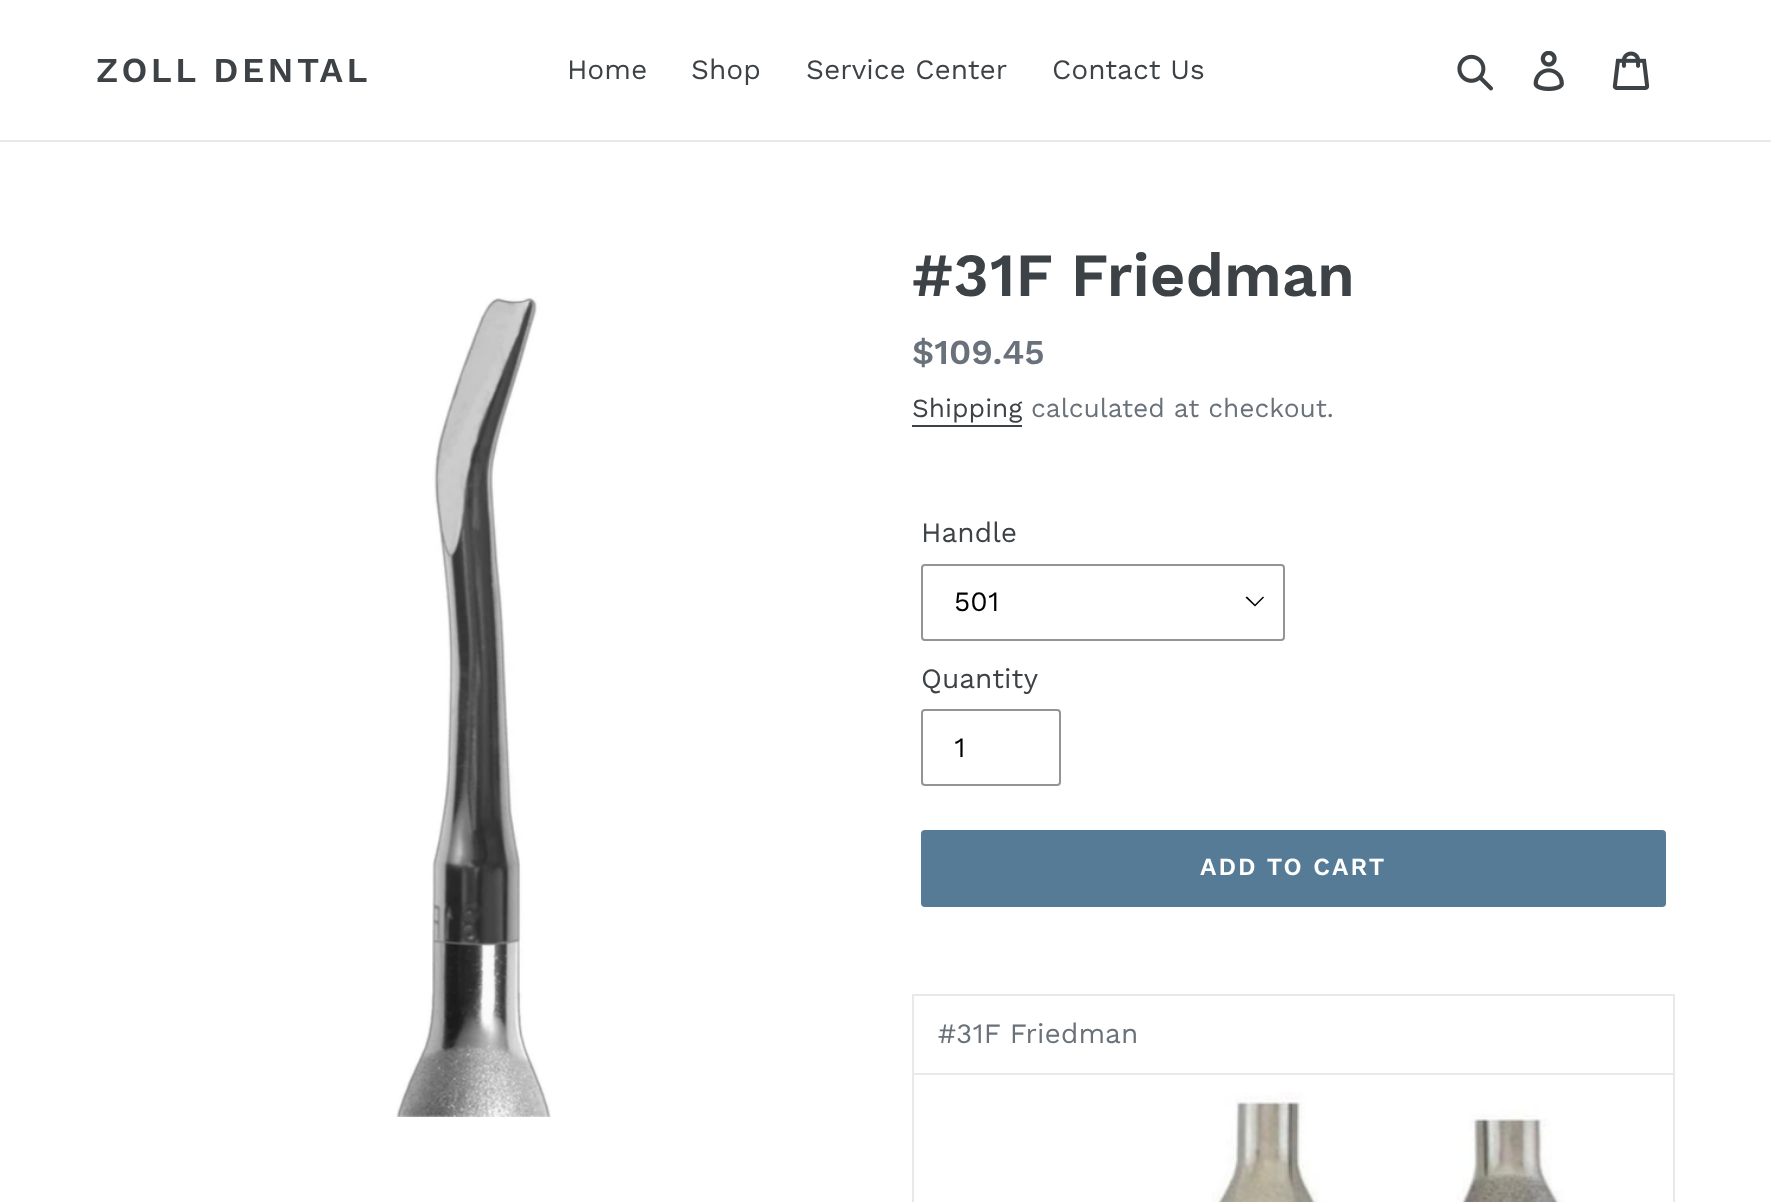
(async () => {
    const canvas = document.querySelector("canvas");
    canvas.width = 1771;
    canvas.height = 1202;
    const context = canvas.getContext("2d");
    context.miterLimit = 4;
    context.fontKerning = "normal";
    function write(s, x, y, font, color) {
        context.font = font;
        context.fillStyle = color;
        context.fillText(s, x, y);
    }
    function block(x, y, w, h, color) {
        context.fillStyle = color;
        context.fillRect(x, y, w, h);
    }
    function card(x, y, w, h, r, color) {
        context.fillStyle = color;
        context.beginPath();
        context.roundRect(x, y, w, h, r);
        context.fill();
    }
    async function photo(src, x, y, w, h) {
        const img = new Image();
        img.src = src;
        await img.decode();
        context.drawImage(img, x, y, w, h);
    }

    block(0, 0, 1771, 1202, "rgb(255, 255, 255)");
    block(0, 140, 1771, 2, "rgb(232, 233, 235)");
    context.letterSpacing = "3.5px";
    write("ZOLL DENTAL", 96, 82, "600 35px Work Sans", "rgb(61, 66, 70)");
    context.letterSpacing = "0px";
    write("Home", 567, 79, "28px Work Sans", "rgb(61, 66, 70)");
    write("Shop", 691, 79, "28px Work Sans", "rgb(61, 66, 70)");
    write("Service Center", 806, 79, "28px Work Sans", "rgb(61, 66, 70)");
    write("Contact Us", 1052, 79, "28px Work Sans", "rgb(61, 66, 70)");
    await photo("media/1.png", 1457, 54, 36, 37);
    await photo("media/2.png", 1533, 51, 31, 40);
    await photo("media/3.png", 1612, 51, 38, 39);
    await photo("media/4.png", 396, 297, 155, 820);
    write("#31F Friedman", 912, 296, "600 61.25px Work Sans", "rgb(61, 66, 70)");
    write("$109.45", 912, 364, "600 35px Work Sans", "rgb(105, 114, 123)");
    write("Shipping", 912, 417, "26.25px Work Sans", "rgb(61, 66, 70)");
    block(912, 425, 110, 2, "rgb(61, 66, 70)");
    write("calculated at checkout.", 1031, 417, "26.25px Work Sans", "rgb(105, 114, 123)");
    write("Handle", 921, 542, "28px Work Sans", "rgb(61, 66, 70)");
    context.fillStyle = "rgb(0, 0, 0)";
    context.beginPath();
    context.moveTo(1255, 606.5);
    context.lineTo(1245.5, 597.5);
    context.lineTo(1247, 596.5);
    context.lineTo(1255, 604.5);
    context.lineTo(1263, 596.5);
    context.lineTo(1264, 597.5);
    context.closePath();
    context.fill();
    context.beginPath();
    context.roundRect(922, 565, 362, 75, 3);
    context.strokeStyle = "rgb(148, 148, 148)";
    context.lineWidth = 2;
    context.stroke();
    write("501", 954, 611, "28px Work Sans", "rgb(0, 0, 0)");
    write("Quantity", 921, 688, "28px Work Sans", "rgb(61, 66, 70)");
    context.beginPath();
    context.roundRect(922, 710, 138, 75, 3);
    context.stroke();
    write("1", 954, 757, "28px Work Sans", "rgb(0, 0, 0)");
    card(921, 830, 745, 77, 4, "rgb(85, 123, 151)");
    context.letterSpacing = "2px";
    write("ADD TO CART", 1200, 875, "600 24.5px Work Sans", "rgb(255, 255, 255)");
    block(912, 994, 763, 2, "rgb(232, 233, 235)");
    block(912, 1073, 763, 2, "rgb(232, 233, 235)");
    block(1673, 1073, 2, 129, "rgb(232, 233, 235)");
    block(1673, 994, 2, 81, "rgb(232, 233, 235)");
    block(912, 1073, 2, 129, "rgb(232, 233, 235)");
    block(912, 994, 2, 81, "rgb(232, 233, 235)");
    context.letterSpacing = "0px";
    write("#31F Friedman", 938, 1043, "28px Work Sans", "rgb(105, 114, 123)");
    await photo("media/5.png", 1211, 1092, 355, 110);
})();
